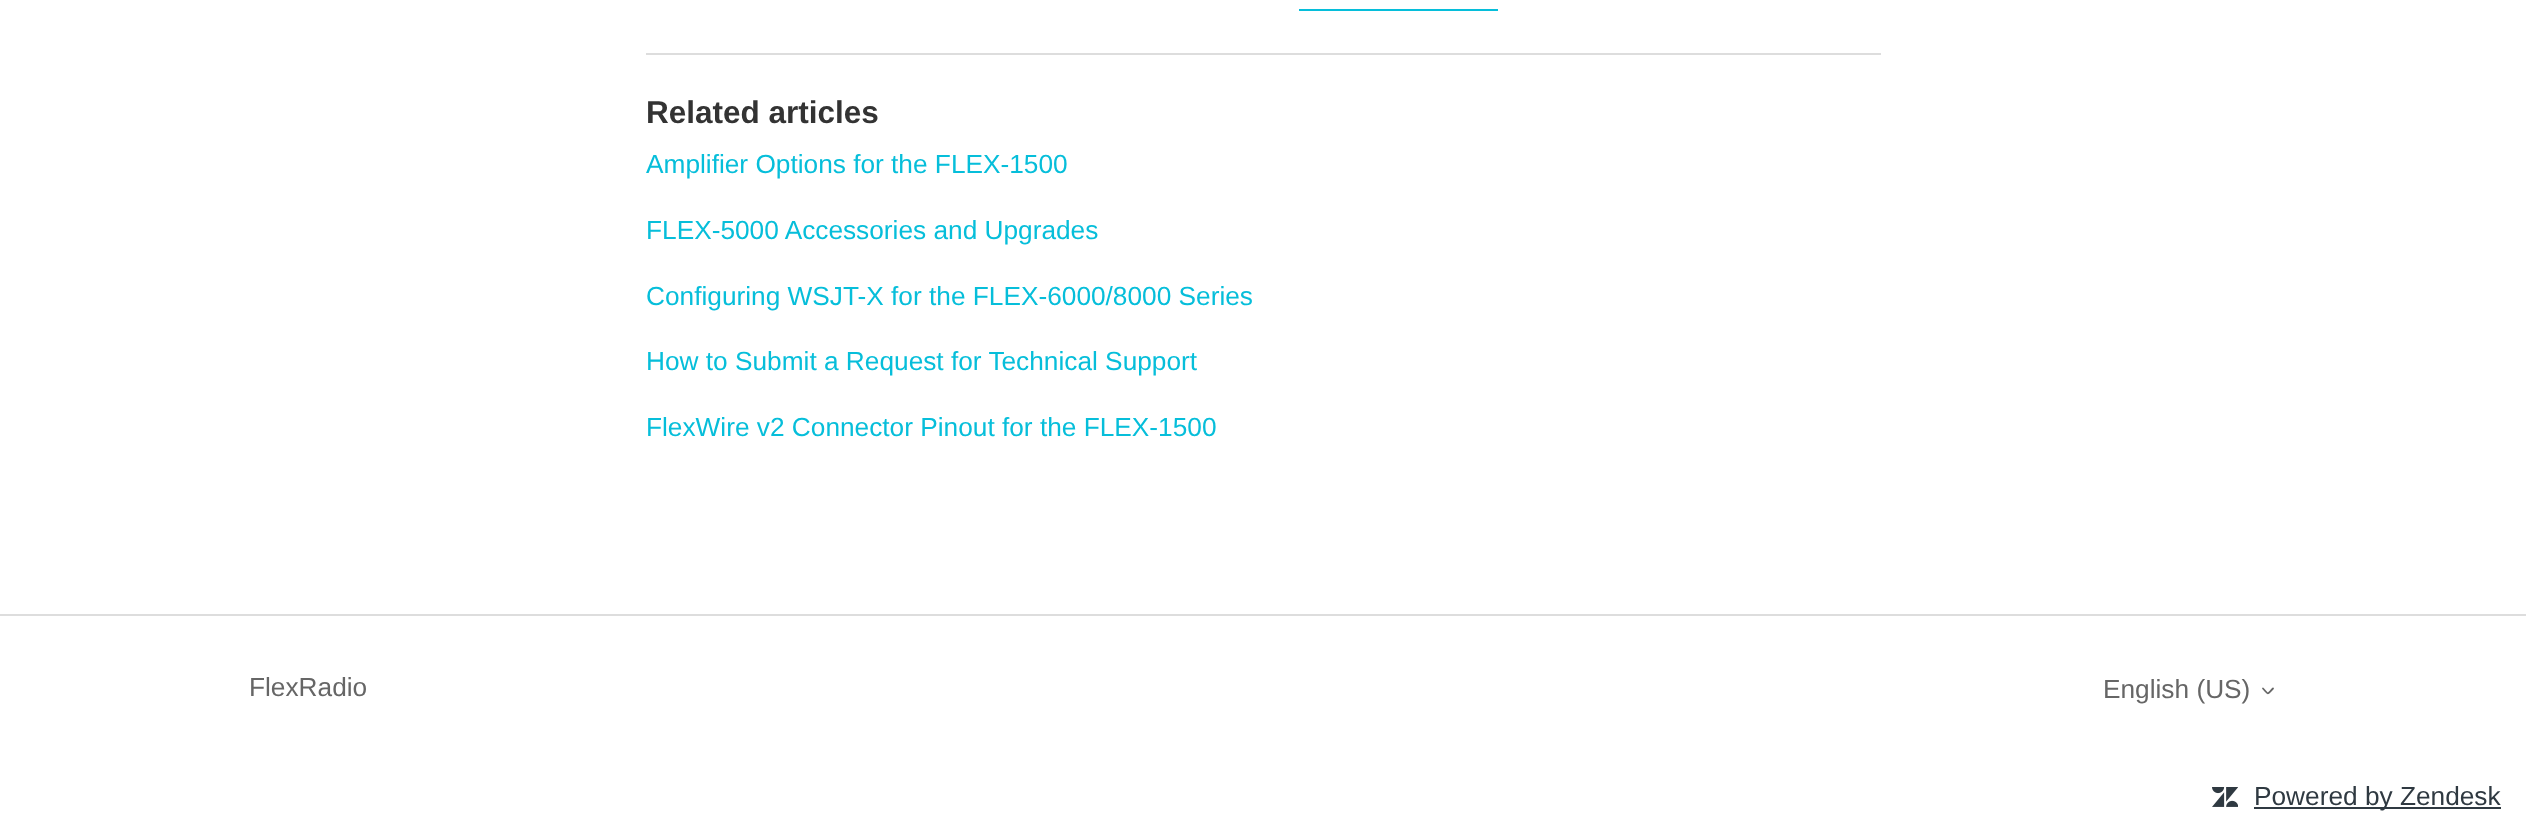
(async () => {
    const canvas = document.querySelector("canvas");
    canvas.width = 2526;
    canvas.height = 826;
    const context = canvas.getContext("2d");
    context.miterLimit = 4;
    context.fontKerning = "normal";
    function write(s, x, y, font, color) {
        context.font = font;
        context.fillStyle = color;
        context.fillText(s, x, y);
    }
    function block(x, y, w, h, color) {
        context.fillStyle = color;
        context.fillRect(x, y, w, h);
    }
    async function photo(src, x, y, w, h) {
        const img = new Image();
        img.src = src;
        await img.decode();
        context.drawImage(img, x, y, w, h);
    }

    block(0, 0, 2526, 826, "rgb(255, 255, 255)");
    block(1299, 9, 199, 2, "rgb(6, 190, 218)");
    block(646, 53, 1235, 2, "rgb(221, 221, 221)");
    write("Related articles", 646, 123, "bold 31.5px Liberation Sans", "rgb(51, 51, 51)");
    write("Amplifier Options for the FLEX-1500", 646, 173, "26.25px Liberation Sans", "rgb(6, 190, 218)");
    write("FLEX-5000 Accessories and Upgrades", 646, 239, "26.25px Liberation Sans", "rgb(6, 190, 218)");
    write("Configuring WSJT-X for the FLEX-6000/8000 Series", 646, 305, "26.25px Liberation Sans", "rgb(6, 190, 218)");
    write("How to Submit a Request for Technical Support", 646, 370, "26.25px Liberation Sans", "rgb(6, 190, 218)");
    write("FlexWire v2 Connector Pinout for the FLEX-1500", 646, 436, "26.25px Liberation Sans", "rgb(6, 190, 218)");
    block(0, 614, 2526, 2, "rgb(221, 221, 221)");
    write("FlexRadio", 249, 696, "26.25px Liberation Sans", "rgb(102, 102, 102)");
    write("English (US)", 2103, 698, "26.25px Liberation Sans", "rgb(102, 102, 102)");
    context.beginPath();
    context.moveTo(2263, 688.5);
    context.bezierCurveTo(2269, 695, 2266.5, 695, 2273, 688.5);
    context.strokeStyle = "rgb(102, 102, 102)";
    context.lineWidth = 1.8;
    context.lineCap = "round";
    context.stroke();
    await photo("media/1.png", 2212, 787, 26, 20);
    block(2254, 807, 247, 2, "rgb(47, 57, 65)");
    write("Powered by Zendesk", 2254, 805, "26.25px Liberation Sans", "rgb(47, 57, 65)");
})();
